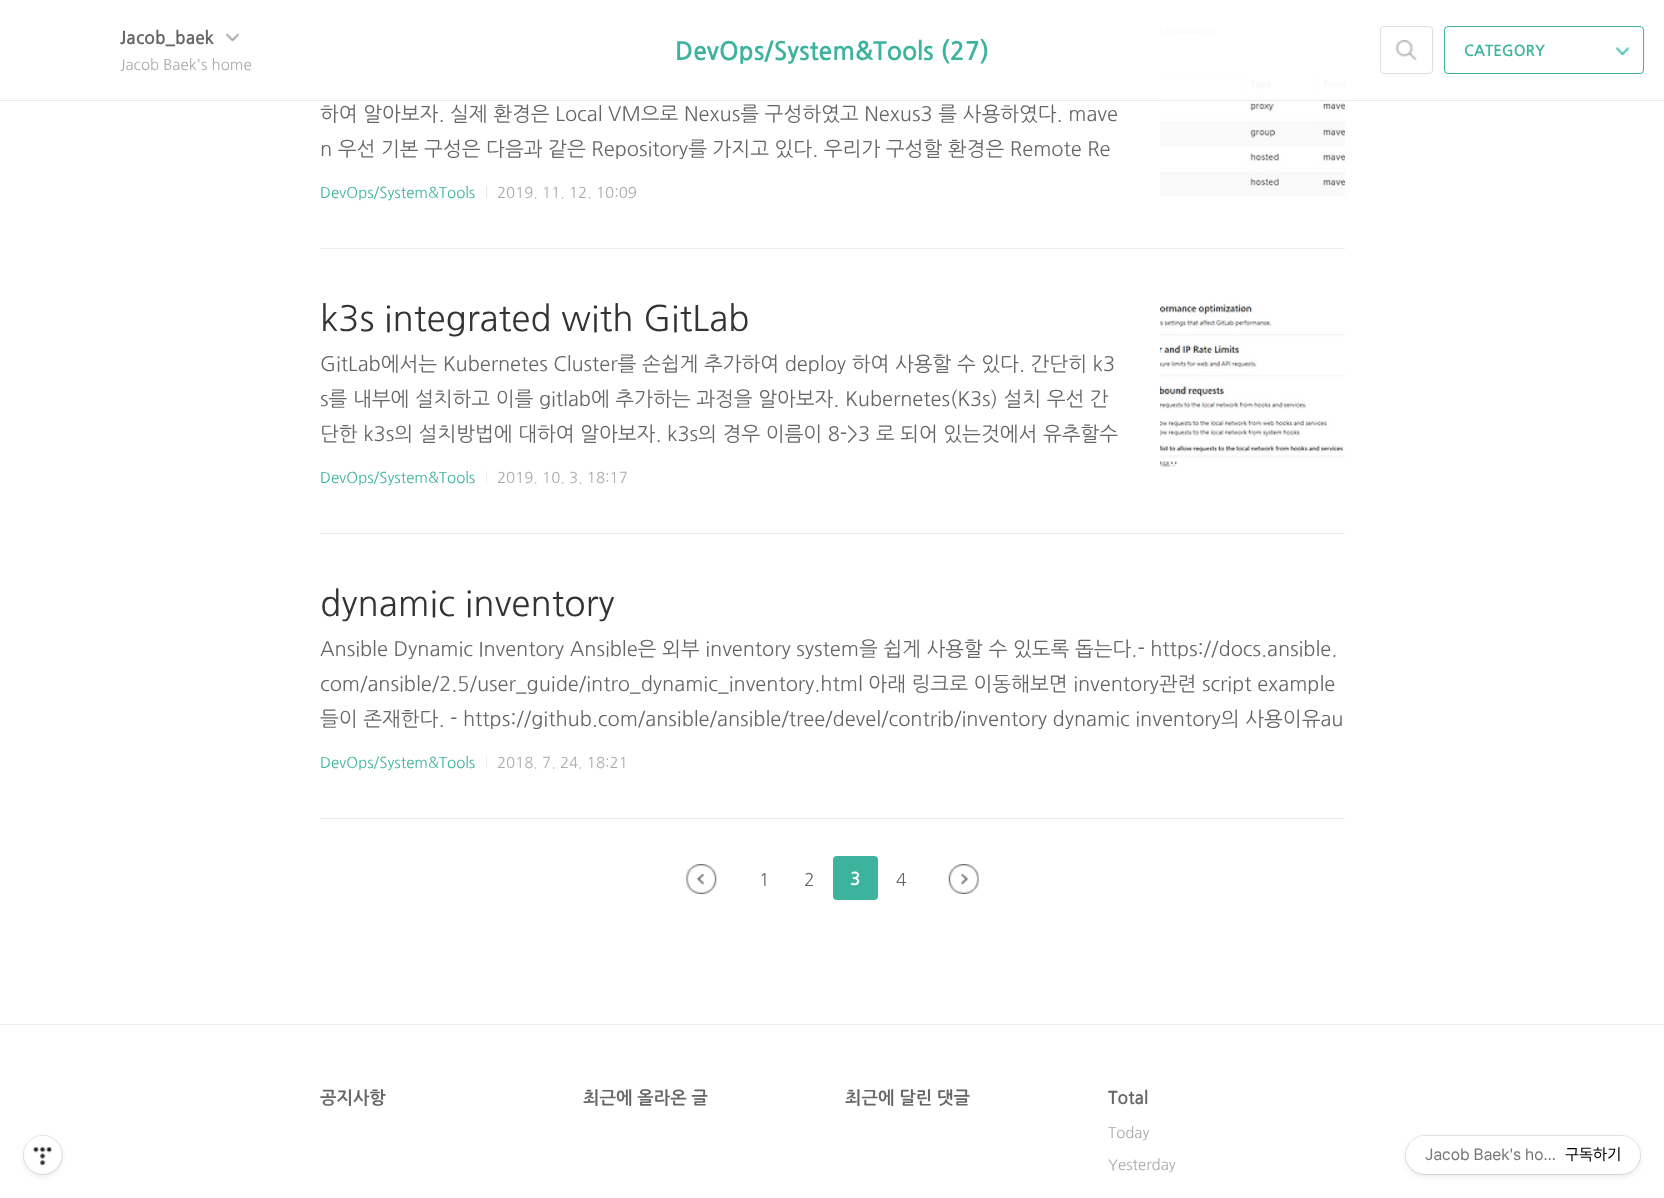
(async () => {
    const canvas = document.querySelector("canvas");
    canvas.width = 1664;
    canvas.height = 1198;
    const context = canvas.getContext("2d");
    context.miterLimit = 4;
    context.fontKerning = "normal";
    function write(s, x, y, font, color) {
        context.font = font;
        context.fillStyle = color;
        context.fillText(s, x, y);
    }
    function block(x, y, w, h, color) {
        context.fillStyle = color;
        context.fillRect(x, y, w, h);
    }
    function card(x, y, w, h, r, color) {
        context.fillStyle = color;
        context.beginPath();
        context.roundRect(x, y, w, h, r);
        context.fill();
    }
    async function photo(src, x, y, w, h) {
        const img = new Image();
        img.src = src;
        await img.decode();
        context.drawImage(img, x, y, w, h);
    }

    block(0, 0, 1664, 1198, "rgb(255, 255, 255)");
    context.fillStyle = "rgba(0, 0, 0, 0.1)";
    context.filter = "blur(3px)";
    context.beginPath();
    context.roundRect(24, 1139, 37, 37, 18.5);
    context.fill();
    context.filter = "none";
    context.beginPath();
    context.arc(43, 1155, 19.5, 0, Math.PI * 2);
    context.strokeStyle = "rgba(0, 0, 0, 0.1)";
    context.stroke();
    card(24, 1136, 37, 38, 18.5, "rgb(255, 255, 255)");
    await photo("media/1.png", 33, 1146, 19, 20);
    await photo("media/5.png", 1160, 26, 185, 170);
    block(1160, 26, 185, 71, "rgba(255, 255, 255, 0.95)");
    block(0, 100, 1664, 1, "rgb(235, 235, 235)");
    write("Jacob_baek", 120, 44, "bold 17.5px NanumGothic", "rgb(102, 102, 102)");
    await photo("media/2.png", 226, 33, 13, 9);
    write("Jacob Baek's home", 120, 70, "15px NanumGothic", "rgb(170, 170, 170)");
    write("DevOps/System&Tools (27)", 675, 60, "bold 25px NanumGothic", "rgb(61, 179, 158)");
    context.beginPath();
    context.roundRect(1380.5, 26.5, 52, 47, 3.5);
    context.strokeStyle = "rgb(221, 221, 221)";
    context.stroke();
    await photo("media/3.png", 1396, 40, 21, 20);
    context.beginPath();
    context.roundRect(1444.5, 26.5, 199, 47, 3.5);
    context.strokeStyle = "rgb(61, 179, 158)";
    context.stroke();
    write("CATEGORY", 1464, 56, "bold 15px NanumGothic", "rgb(61, 179, 158)");
    await photo("media/4.png", 1616, 47, 14, 8);
    block(320, 248, 1025, 1, "rgb(235, 235, 235)");
    write("하여 알아보자. 실제 환경은 Local VM으로 Nexus를 구성하였고 Nexus3 를 사용하였다. mave", 320, 121, "20px NanumGothic", "rgb(102, 102, 102)");
    write("n 우선 기본 구성은 다음과 같은 Repository를 가지고 있다. 우리가 구성할 환경은 Remote Re", 320, 156, "20px NanumGothic", "rgb(102, 102, 102)");
    write("DevOps/System&Tools", 320, 198, "15px NanumGothic", "rgb(61, 179, 158)");
    block(486, 186, 1, 12, "rgb(235, 235, 235)");
    write("2019. 11. 12. 10:09", 497, 198, "15px NanumGothic", "rgb(170, 170, 170)");
    block(320, 533, 1025, 1, "rgb(235, 235, 235)");
    write("k3s integrated with GitLab", 320, 331, "35px NanumGothic", "rgb(51, 51, 51)");
    write("GitLab에서는 Kubernetes Cluster를 손쉽게 추가하여 deploy 하여 사용할 수 있다. 간단히 k3", 320, 371, "20px NanumGothic", "rgb(102, 102, 102)");
    write("s를 내부에 설치하고 이를 gitlab에 추가하는 과정을 알아보자. Kubernetes(K3s) 설치 우선 간", 320, 406, "20px NanumGothic", "rgb(102, 102, 102)");
    write("단한 k3s의 설치방법에 대하여 알아보자. k3s의 경우 이름이 8->3 로 되어 있는것에서 유추할수", 320, 441, "20px NanumGothic", "rgb(102, 102, 102)");
    await photo("media/6.png", 1160, 303, 185, 164);
    write("DevOps/System&Tools", 320, 483, "15px NanumGothic", "rgb(61, 179, 158)");
    block(486, 471, 1, 12, "rgb(235, 235, 235)");
    write("2019. 10. 3. 18:17", 497, 483, "15px NanumGothic", "rgb(170, 170, 170)");
    block(320, 818, 1025, 1, "rgb(235, 235, 235)");
    write("dynamic inventory", 320, 616, "35px NanumGothic", "rgb(51, 51, 51)");
    write("Ansible Dynamic Inventory Ansible은 외부 inventory system을 쉽게 사용할 수 있도록 돕는다.- https://docs.ansible.", 320, 656, "20px NanumGothic", "rgb(102, 102, 102)");
    write("com/ansible/2.5/user_guide/intro_dynamic_inventory.html 아래 링크로 이동해보면 inventory관련 script example", 320, 691, "20px NanumGothic", "rgb(102, 102, 102)");
    write("들이 존재한다. - https://github.com/ansible/ansible/tree/devel/contrib/inventory dynamic inventory의 사용이유au", 320, 726, "20px NanumGothic", "rgb(102, 102, 102)");
    write("DevOps/System&Tools", 320, 768, "15px NanumGothic", "rgb(61, 179, 158)");
    block(486, 756, 1, 12, "rgb(235, 235, 235)");
    write("2018. 7. 24. 18:21", 497, 768, "15px NanumGothic", "rgb(170, 170, 170)");
    await photo("media/7.png", 686, 864, 31, 30);
    write("1", 759, 886, "17.5px NanumGothic", "rgb(102, 102, 102)");
    write("2", 804, 886, "17.5px NanumGothic", "rgb(102, 102, 102)");
    card(833, 856, 45, 44, 4, "rgb(61, 179, 158)");
    write("3", 850, 885, "bold 17.5px NanumGothic", "rgb(255, 255, 255)");
    write("4", 896, 886, "17.5px NanumGothic", "rgb(102, 102, 102)");
    await photo("media/8.png", 948, 864, 31, 30);
    block(0, 1024, 1664, 1, "rgb(235, 235, 235)");
    write("공지사항", 320, 1104, "bold 17.5px NanumGothic", "rgb(102, 102, 102)");
    write("최근에 올라온 글", 583, 1104, "bold 17.5px NanumGothic", "rgb(102, 102, 102)");
    write("최근에 달린 댓글", 845, 1104, "bold 17.5px NanumGothic", "rgb(102, 102, 102)");
    write("Total", 1108, 1104, "bold 17.5px NanumGothic", "rgb(102, 102, 102)");
    write("Today", 1108, 1138, "15px NanumGothic", "rgb(170, 170, 170)");
    write("Yesterday", 1108, 1170, "15px NanumGothic", "rgb(170, 170, 170)");
    context.fillStyle = "rgba(0, 0, 0, 0.1)";
    context.filter = "blur(3px)";
    context.beginPath();
    context.roundRect(1406, 1139, 234, 37, 18.5);
    context.fill();
    context.filter = "none";
    context.beginPath();
    context.roundRect(1405.5, 1135.5, 235, 39, 19.5);
    context.strokeStyle = "rgba(0, 0, 0, 0.1)";
    context.stroke();
    card(1406, 1136, 234, 38, 19, "rgb(255, 255, 255)");
    write("Jacob Baek's ho…", 1425, 1160, "16.25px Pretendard", "rgb(119, 119, 119)");
    write("구독하기", 1565, 1160, "16.25px Pretendard", "rgb(0, 0, 0)");
})();
